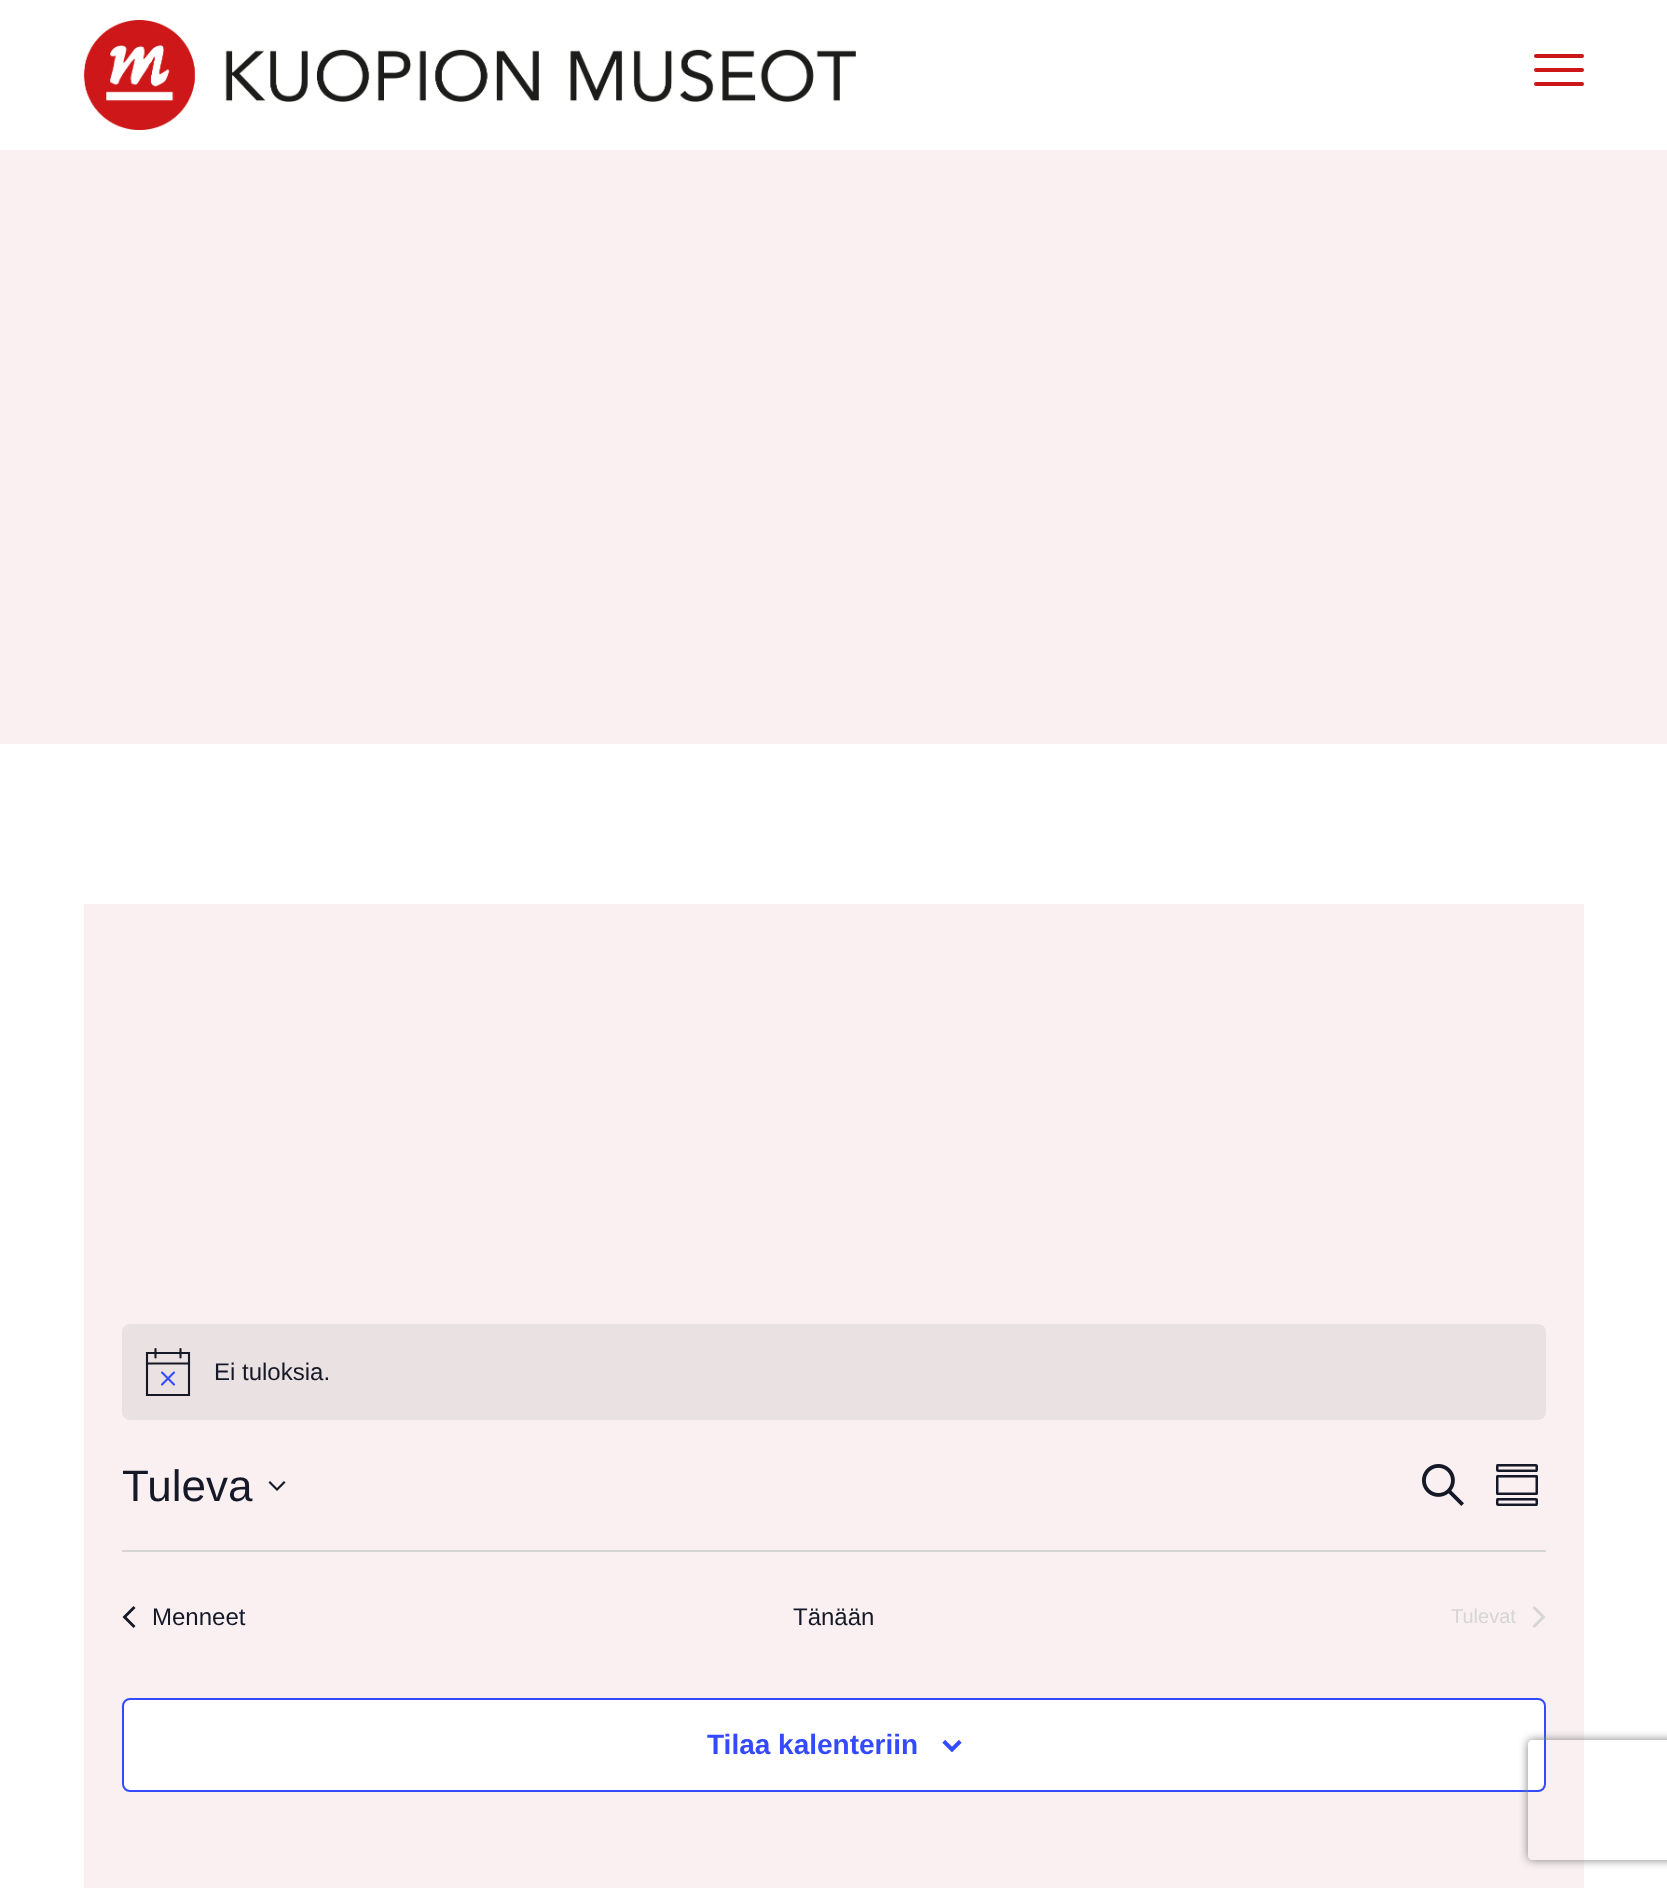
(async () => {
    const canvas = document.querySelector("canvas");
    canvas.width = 1667;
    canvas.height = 1888;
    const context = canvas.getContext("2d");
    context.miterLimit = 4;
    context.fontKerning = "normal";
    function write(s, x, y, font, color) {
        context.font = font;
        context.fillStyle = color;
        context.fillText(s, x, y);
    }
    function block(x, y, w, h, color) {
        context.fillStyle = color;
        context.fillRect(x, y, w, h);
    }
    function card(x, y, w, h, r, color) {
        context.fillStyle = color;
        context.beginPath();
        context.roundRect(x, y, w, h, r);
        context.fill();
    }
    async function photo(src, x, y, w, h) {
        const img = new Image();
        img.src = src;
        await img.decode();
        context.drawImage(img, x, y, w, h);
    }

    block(0, 0, 1667, 1888, "rgb(255, 255, 255)");
    await photo("media/1.png", 83, 20, 773, 110);
    card(1534, 68, 50, 4, 2, "rgb(205, 22, 24)");
    card(1534, 54, 50, 4, 2, "rgb(205, 22, 24)");
    card(1534, 82, 50, 4, 2, "rgb(205, 22, 24)");
    block(0, 150, 1667, 594, "rgb(250, 240, 241)");
    block(84, 904, 1500, 984, "rgb(250, 240, 241)");
    card(122, 1324, 1424, 96, 8, "rgb(234, 225, 226)");
    context.beginPath();
    context.moveTo(147, 1353);
    context.lineTo(189, 1353);
    context.lineTo(189, 1395);
    context.lineTo(147, 1395);
    context.closePath();
    context.strokeStyle = "rgb(20, 24, 39)";
    context.lineWidth = 2.1;
    context.stroke();
    context.beginPath();
    context.moveTo(162, 1372.5);
    context.lineTo(174, 1384.5);
    context.moveTo(174, 1372.5);
    context.lineTo(162, 1384.5);
    context.strokeStyle = "rgb(51, 74, 255)";
    context.lineCap = "round";
    context.stroke();
    context.beginPath();
    context.moveTo(155.5, 1349);
    context.lineTo(155.5, 1357.5);
    context.moveTo(180.5, 1349);
    context.lineTo(180.5, 1357.5);
    context.strokeStyle = "rgb(20, 24, 39)";
    context.stroke();
    context.beginPath();
    context.moveTo(147, 1363.5);
    context.lineTo(189, 1363.5);
    context.lineCap = "square";
    context.stroke();
    write("Ei tuloksia.", 214, 1380, "24px Liberation Sans", "rgb(20, 24, 39)");
    write("Tuleva", 122, 1501, "44px Liberation Sans", "rgb(20, 24, 39)");
    context.beginPath();
    context.moveTo(270, 1481);
    context.lineTo(277, 1488);
    context.lineTo(284, 1481);
    context.lineTo(285.5, 1482.5);
    context.lineTo(277, 1491);
    context.lineTo(268.5, 1482.5);
    context.closePath();
    context.fill("evenodd");
    await photo("media/2.png", 1422, 1464, 42, 42);
    await photo("media/3.png", 1496, 1464, 42, 42);
    block(122, 1550, 1424, 2, "rgb(213, 213, 213)");
    context.fillStyle = "rgb(20, 24, 39)";
    context.beginPath();
    context.moveTo(135.5, 1626);
    context.lineTo(133.5, 1628);
    context.lineTo(122.5, 1617);
    context.lineTo(133.5, 1606);
    context.lineTo(135.5, 1608);
    context.lineTo(126.5, 1617);
    context.closePath();
    context.fill();
    write("Menneet", 152, 1625, "24px Liberation Sans", "rgb(20, 24, 39)");
    write("Tänään", 793, 1625, "24px Liberation Sans", "rgb(20, 24, 39)");
    write("Tulevat", 1451, 1623, "20px Liberation Sans", "rgb(213, 213, 213)");
    context.beginPath();
    context.moveTo(1532.5, 1608);
    context.lineTo(1534.5, 1606);
    context.lineTo(1545.5, 1617);
    context.lineTo(1534.5, 1628);
    context.lineTo(1532.5, 1626);
    context.lineTo(1541.5, 1617);
    context.closePath();
    context.fill();
    context.fillStyle = "rgb(255, 255, 255)";
    context.beginPath();
    context.roundRect(123, 1699, 1422, 92, 7);
    context.fill();
    context.strokeStyle = "rgb(51, 74, 255)";
    context.lineWidth = 2;
    context.stroke();
    write("Tilaa kalenteriin", 707, 1754, "bold 28px Liberation Sans", "rgb(51, 74, 255)");
    await photo("media/4.png", 942, 1740, 20, 12);
    context.save();
    context.beginPath();
    context.moveTo(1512, 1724);
    context.lineTo(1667, 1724);
    context.lineTo(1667, 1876);
    context.lineTo(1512, 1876);
    context.closePath();
    context.moveTo(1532, 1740);
    context.lineTo(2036, 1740);
    context.bezierCurveTo(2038, 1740, 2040, 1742, 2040, 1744);
    context.lineTo(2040, 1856);
    context.bezierCurveTo(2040, 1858, 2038, 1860, 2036, 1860);
    context.lineTo(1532, 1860);
    context.bezierCurveTo(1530, 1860, 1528, 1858, 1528, 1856);
    context.lineTo(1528, 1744);
    context.bezierCurveTo(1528, 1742, 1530, 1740, 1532, 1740);
    context.closePath();
    context.clip("evenodd");
    context.fillStyle = "rgb(128, 128, 128)";
    context.filter = "blur(5px)";
    context.beginPath();
    context.roundRect(1528, 1740, 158, 120, 4);
    context.fill();
    context.filter = "none";
    context.restore();
})();
